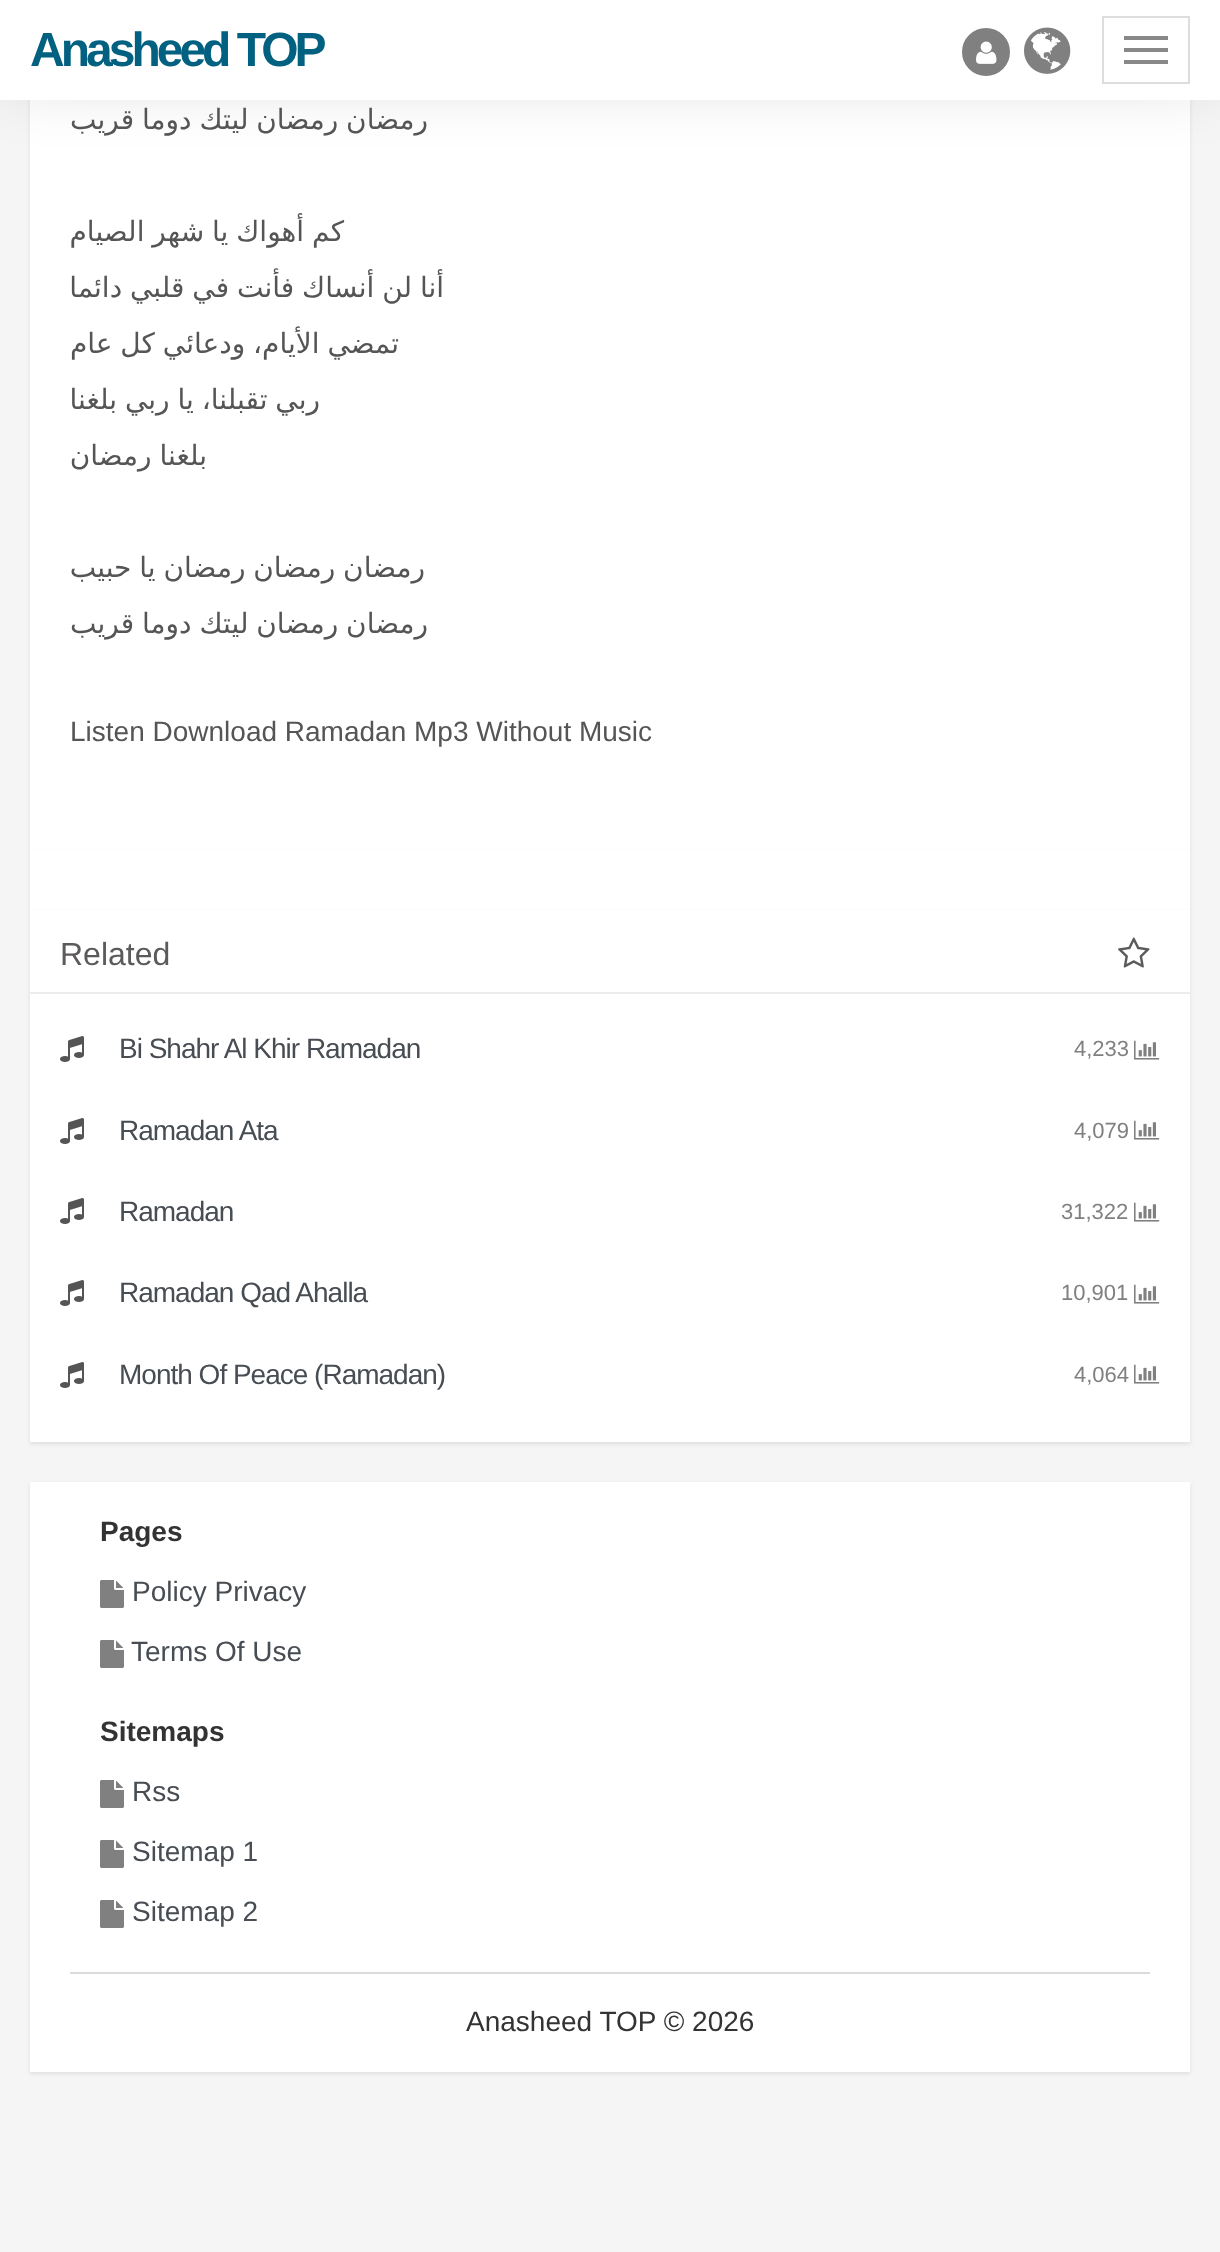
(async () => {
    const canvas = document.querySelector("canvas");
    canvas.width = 1220;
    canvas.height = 2252;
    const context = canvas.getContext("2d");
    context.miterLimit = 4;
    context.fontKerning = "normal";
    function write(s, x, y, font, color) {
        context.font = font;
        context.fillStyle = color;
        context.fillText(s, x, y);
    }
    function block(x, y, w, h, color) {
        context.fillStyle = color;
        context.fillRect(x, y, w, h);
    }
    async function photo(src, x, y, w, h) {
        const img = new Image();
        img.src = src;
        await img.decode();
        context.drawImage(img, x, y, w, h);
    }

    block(0, 0, 1220, 2252, "rgb(245, 245, 245)");
    context.fillStyle = "rgba(0, 0, 0, 0.09)";
    context.filter = "blur(2px)";
    context.beginPath();
    context.rect(30, -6, 1160, 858);
    context.fill();
    context.filter = "none";
    block(30, 100, 1160, 750, "rgb(255, 255, 255)");
    context.fillStyle = "rgba(0, 0, 0, 0.31)";
    context.filter = "blur(40px)";
    context.beginPath();
    context.rect(0, -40, 1220, 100);
    context.fill();
    context.filter = "none";
    block(0, 0, 1220, 100, "rgb(255, 255, 255)");
    context.letterSpacing = "-4px";
    write("Anasheed TOP", 30, 66, "bold 48px Liberation Sans", "rgb(2, 97, 128)");
    context.strokeStyle = "rgb(221, 221, 221)";
    context.lineWidth = 2;
    context.strokeRect(1103, 17, 86, 66);
    block(1124, 36, 44, 4, "rgb(136, 136, 136)");
    block(1124, 48, 44, 4, "rgb(136, 136, 136)");
    block(1124, 60, 44, 4, "rgb(136, 136, 136)");
    context.fillStyle = "rgb(128, 128, 128)";
    context.beginPath();
    context.arc(986, 52, 23, 0, Math.PI * 2);
    context.fill();
    context.strokeStyle = "rgb(128, 128, 128)";
    context.stroke();
    await photo("media/1.png", 976, 41, 21, 23);
    await photo("media/2.png", 1024, 27, 47, 47);
    context.letterSpacing = "0px";
    context.wordSpacing = "-1px";
    context.direction = "rtl";
    write("رمضان رمضان ليتك دوما قريب", 428, 129, "28px DejaVu Sans", "rgb(85, 85, 85)");
    write("كم أهواك يا شهر الصيام", 344, 241, "28px DejaVu Sans", "rgb(85, 85, 85)");
    write("أنا لن أنساك فأنت في قلبي دائما", 444, 297, "28px DejaVu Sans", "rgb(85, 85, 85)");
    write("تمضي الأيام، ودعائي كل عام", 399, 353, "28px DejaVu Sans", "rgb(85, 85, 85)");
    write("ربي تقبلنا، يا ربي بلغنا", 320, 409, "28px DejaVu Sans", "rgb(85, 85, 85)");
    write("بلغنا رمضان", 207, 465, "28px DejaVu Sans", "rgb(85, 85, 85)");
    write("رمضان رمضان رمضان يا حبيب", 425, 577, "28px DejaVu Sans", "rgb(85, 85, 85)");
    write("رمضان رمضان ليتك دوما قريب", 428, 633, "28px DejaVu Sans", "rgb(85, 85, 85)");
    context.wordSpacing = "0px";
    context.direction = "ltr";
    write("Listen Download Ramadan Mp3 Without Music", 70, 741, "28px Liberation Sans", "rgb(85, 85, 85)");
    context.fillStyle = "rgba(0, 0, 0, 0.09)";
    context.filter = "blur(2px)";
    context.beginPath();
    context.rect(30, 852, 1160, 60);
    context.fill();
    context.filter = "none";
    block(30, 850, 1160, 60, "rgb(255, 255, 255)");
    context.fillStyle = "rgba(0, 0, 0, 0.09)";
    context.filter = "blur(2px)";
    context.beginPath();
    context.rect(30, 912, 1160, 532);
    context.fill();
    context.filter = "none";
    block(30, 910, 1160, 532, "rgb(255, 255, 255)");
    block(30, 992, 1160, 2, "rgb(236, 236, 236)");
    write("Related", 60, 965, "32px Liberation Sans", "rgb(92, 90, 90)");
    await photo("media/3.png", 1118, 937, 32, 31);
    await photo("media/4.png", 60, 1036, 24, 26);
    context.letterSpacing = "-1px";
    write("Bi Shahr Al Khir Ramadan", 119, 1058, "28px Liberation Sans", "rgb(71, 77, 83)");
    context.letterSpacing = "0px";
    write("4,233", 1074, 1056, "22px Liberation Sans", "rgb(128, 128, 128)");
    await photo("media/5.png", 1134, 1040, 26, 20);
    await photo("media/4.png", 60, 1118, 24, 26);
    context.letterSpacing = "-1px";
    write("Ramadan Ata", 119, 1140, "28px Liberation Sans", "rgb(71, 77, 83)");
    context.letterSpacing = "0px";
    write("4,079", 1074, 1138, "22px Liberation Sans", "rgb(128, 128, 128)");
    await photo("media/5.png", 1134, 1120, 26, 20);
    await photo("media/4.png", 60, 1198, 24, 26);
    context.letterSpacing = "-1px";
    write("Ramadan", 119, 1221, "28px Liberation Sans", "rgb(71, 77, 83)");
    context.letterSpacing = "0px";
    write("31,322", 1061, 1219, "22px Liberation Sans", "rgb(128, 128, 128)");
    await photo("media/5.png", 1134, 1202, 26, 20);
    await photo("media/4.png", 60, 1280, 24, 26);
    context.letterSpacing = "-1px";
    write("Ramadan Qad Ahalla", 119, 1302, "28px Liberation Sans", "rgb(71, 77, 83)");
    context.letterSpacing = "0px";
    write("10,901", 1061, 1300, "22px Liberation Sans", "rgb(128, 128, 128)");
    await photo("media/5.png", 1134, 1284, 26, 20);
    await photo("media/4.png", 60, 1362, 24, 26);
    context.letterSpacing = "-1px";
    write("Month Of Peace (Ramadan)", 119, 1384, "28px Liberation Sans", "rgb(71, 77, 83)");
    context.letterSpacing = "0px";
    write("4,064", 1074, 1382, "22px Liberation Sans", "rgb(128, 128, 128)");
    await photo("media/5.png", 1134, 1364, 26, 20);
    context.fillStyle = "rgba(0, 0, 0, 0.09)";
    context.filter = "blur(2px)";
    context.beginPath();
    context.rect(30, 1484, 1160, 590);
    context.fill();
    context.filter = "none";
    block(30, 1482, 1160, 590, "rgb(255, 255, 255)");
    write("Pages", 100, 1541, "bold 28px Liberation Sans", "rgb(51, 51, 51)");
    await photo("media/6.png", 100, 1580, 24, 28);
    write("Policy Privacy", 132, 1601, "28px Liberation Sans", "rgb(71, 77, 83)");
    await photo("media/6.png", 100, 1640, 24, 28);
    write("Terms Of Use", 131, 1661, "28px Liberation Sans", "rgb(71, 77, 83)");
    write("Sitemaps", 100, 1741, "bold 28px Liberation Sans", "rgb(51, 51, 51)");
    await photo("media/6.png", 100, 1780, 24, 28);
    write("Rss", 132, 1801, "28px Liberation Sans", "rgb(71, 77, 83)");
    await photo("media/6.png", 100, 1840, 24, 28);
    write("Sitemap 1", 132, 1861, "28px Liberation Sans", "rgb(71, 77, 83)");
    await photo("media/6.png", 100, 1900, 24, 28);
    write("Sitemap 2", 132, 1921, "28px Liberation Sans", "rgb(71, 77, 83)");
    block(70, 1972, 1080, 2, "rgb(219, 219, 219)");
    write("Anasheed TOP © 2026", 466, 2031, "28px Liberation Sans", "rgb(51, 51, 51)");
})();
